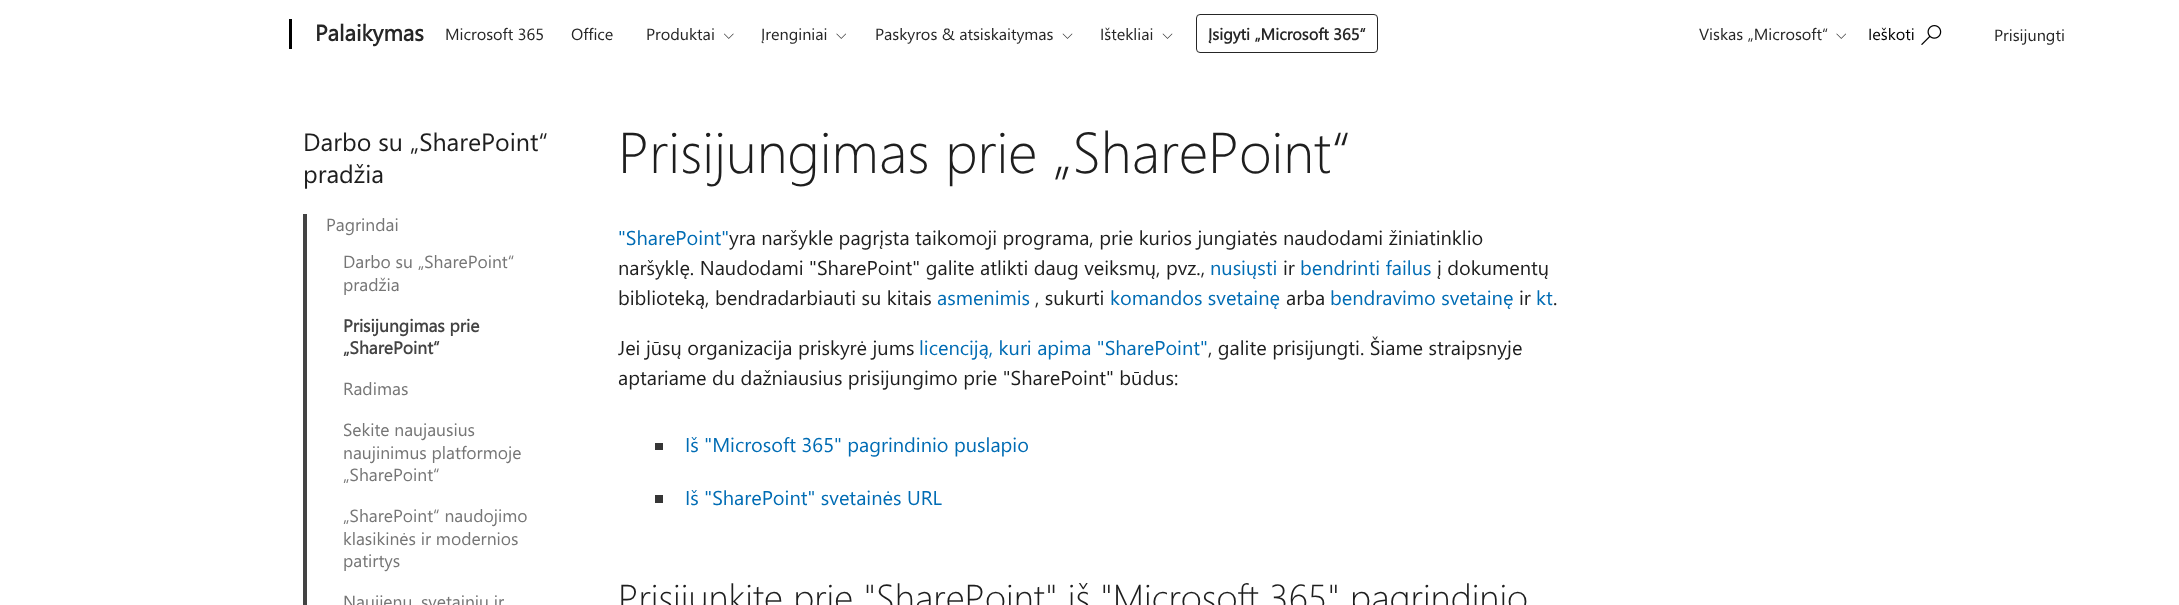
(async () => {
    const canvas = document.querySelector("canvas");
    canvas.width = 2179;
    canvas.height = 605;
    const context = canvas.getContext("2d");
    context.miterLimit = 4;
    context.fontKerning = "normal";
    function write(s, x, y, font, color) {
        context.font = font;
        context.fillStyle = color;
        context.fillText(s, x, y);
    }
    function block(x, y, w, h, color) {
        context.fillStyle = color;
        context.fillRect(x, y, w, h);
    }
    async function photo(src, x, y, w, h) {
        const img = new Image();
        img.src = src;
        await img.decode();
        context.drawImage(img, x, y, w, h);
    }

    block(0, 0, 2179, 605, "rgb(255, 255, 255)");
    block(289, 19, 3, 30, "rgb(0, 0, 0)");
    write("Palaikymas", 315, 41, "bold 22.5px Segoe UI", "rgb(38, 38, 38)");
    write("Microsoft 365", 445, 40, "16.25px Segoe UI", "rgb(38, 38, 38)");
    write("Office", 571, 40, "16.25px Segoe UI", "rgb(38, 38, 38)");
    write("Produktai", 646, 40, "16.25px Segoe UI", "rgb(38, 38, 38)");
    await photo("media/1.png", 724, 33, 10, 6);
    write("Įrenginiai", 761, 40, "16.25px Segoe UI", "rgb(38, 38, 38)");
    await photo("media/2.png", 836, 33, 10, 6);
    write("Paskyros & atsiskaitymas", 875, 40, "16.25px Segoe UI", "rgb(38, 38, 38)");
    await photo("media/3.png", 1062, 33, 11, 6);
    write("Ištekliai", 1100, 40, "16.25px Segoe UI", "rgb(38, 38, 38)");
    await photo("media/3.png", 1162, 33, 11, 6);
    context.beginPath();
    context.roundRect(1196.5, 14.5, 181, 38, 3.5);
    context.strokeStyle = "rgb(38, 38, 38)";
    context.stroke();
    write("Įsigyti „Microsoft 365“", 1208, 40, "bold 16.25px Segoe UI", "rgb(38, 38, 38)");
    write("Viskas „Microsoft“", 1699, 40, "16.25px Segoe UI", "rgb(38, 38, 38)");
    await photo("media/2.png", 1836, 33, 10, 6);
    write("Ieškoti", 1868, 40, "16.25px Segoe UI", "rgb(0, 0, 0)");
    await photo("media/4.png", 1921, 25, 21, 20);
    write("Prisijungti", 1994, 41, "16.25px Segoe UI", "rgb(38, 38, 38)");
    write("Darbo su „SharePoint“", 303, 151, "25px Segoe UI", "rgb(30, 30, 30)");
    write("pradžia", 303, 183, "25px Segoe UI", "rgb(30, 30, 30)");
    block(303, 214, 4, 391, "rgb(67, 67, 67)");
    write("Pagrindai", 326, 231, "17.5px Segoe UI", "rgb(118, 118, 118)");
    write("Darbo su „SharePoint“", 343, 268, "17.5px Segoe UI", "rgb(118, 118, 118)");
    write("pradžia", 343, 291, "17.5px Segoe UI", "rgb(118, 118, 118)");
    write("Prisijungimas prie", 343, 332, "bold 17.5px Segoe UI", "rgb(67, 67, 67)");
    write("„SharePoint“", 343, 354, "bold 17.5px Segoe UI", "rgb(67, 67, 67)");
    write("Radimas", 343, 395, "17.5px Segoe UI", "rgb(118, 118, 118)");
    write("Sekite naujausius", 343, 436, "17.5px Segoe UI", "rgb(118, 118, 118)");
    write("naujinimus platformoje", 343, 459, "17.5px Segoe UI", "rgb(118, 118, 118)");
    write("„SharePoint“", 343, 481, "17.5px Segoe UI", "rgb(118, 118, 118)");
    write("„SharePoint“ naudojimo", 343, 522, "17.5px Segoe UI", "rgb(118, 118, 118)");
    write("klasikinės ir modernios", 343, 545, "17.5px Segoe UI", "rgb(118, 118, 118)");
    write("patirtys", 343, 567, "17.5px Segoe UI", "rgb(118, 118, 118)");
    write("Naujienų, svetainių ir", 343, 608, "17.5px Segoe UI", "rgb(118, 118, 118)");
    write("Prisijungimas prie „SharePoint“", 618, 173, "300 57.5px Segoe UI", "rgb(30, 30, 30)");
    write("\"SharePoint\"", 618, 245, "20px Segoe UI", "rgb(0, 108, 180)");
    write("yra naršykle pagrįsta taikomoji programa, prie kurios jungiatės naudodami žiniatinklio", 729, 245, "20px Segoe UI", "rgb(30, 30, 30)");
    write("naršyklę. Naudodami \"SharePoint\" galite atlikti daug veiksmų, pvz.,", 618, 275, "20px Segoe UI", "rgb(30, 30, 30)");
    write("nusiųsti", 1210, 275, "20px Segoe UI", "rgb(0, 108, 180)");
    write("ir", 1283, 275, "20px Segoe UI", "rgb(30, 30, 30)");
    write("bendrinti failus", 1300, 275, "20px Segoe UI", "rgb(0, 108, 180)");
    write("į dokumentų", 1437, 275, "20px Segoe UI", "rgb(30, 30, 30)");
    write("biblioteką, bendradarbiauti su kitais", 618, 305, "20px Segoe UI", "rgb(30, 30, 30)");
    write("asmenimis", 937, 305, "20px Segoe UI", "rgb(0, 108, 180)");
    write(", sukurti", 1035, 305, "20px Segoe UI", "rgb(30, 30, 30)");
    write("komandos svetainę", 1110, 305, "20px Segoe UI", "rgb(0, 108, 180)");
    write("arba", 1286, 305, "20px Segoe UI", "rgb(30, 30, 30)");
    write("bendravimo svetainę", 1330, 305, "20px Segoe UI", "rgb(0, 108, 180)");
    write("ir", 1519, 305, "20px Segoe UI", "rgb(30, 30, 30)");
    write("kt", 1536, 305, "20px Segoe UI", "rgb(0, 108, 180)");
    write(".", 1553, 305, "20px Segoe UI", "rgb(30, 30, 30)");
    write("Jei jūsų organizacija priskyrė jums", 618, 355, "20px Segoe UI", "rgb(30, 30, 30)");
    write("licenciją, kuri apima \"SharePoint\"", 919, 355, "20px Segoe UI", "rgb(0, 108, 180)");
    write(", galite prisijungti. Šiame straipsnyje", 1208, 355, "20px Segoe UI", "rgb(30, 30, 30)");
    write("aptariame du dažniausius prisijungimo prie \"SharePoint\" būdus:", 618, 385, "20px Segoe UI", "rgb(30, 30, 30)");
    block(655, 443, 8, 7, "rgb(54, 54, 54)");
    write("Iš \"Microsoft 365\" pagrindinio puslapio", 685, 452, "20px Segoe UI", "rgb(0, 108, 180)");
    block(655, 495, 8, 8, "rgb(54, 54, 54)");
    write("Iš \"SharePoint\" svetainės URL", 685, 505, "20px Segoe UI", "rgb(0, 108, 180)");
    write("Prisijunkite prie \"SharePoint\" iš \"Microsoft 365\" pagrindinio", 618, 611, "300 37.5px Segoe UI", "rgb(30, 30, 30)");
})();
